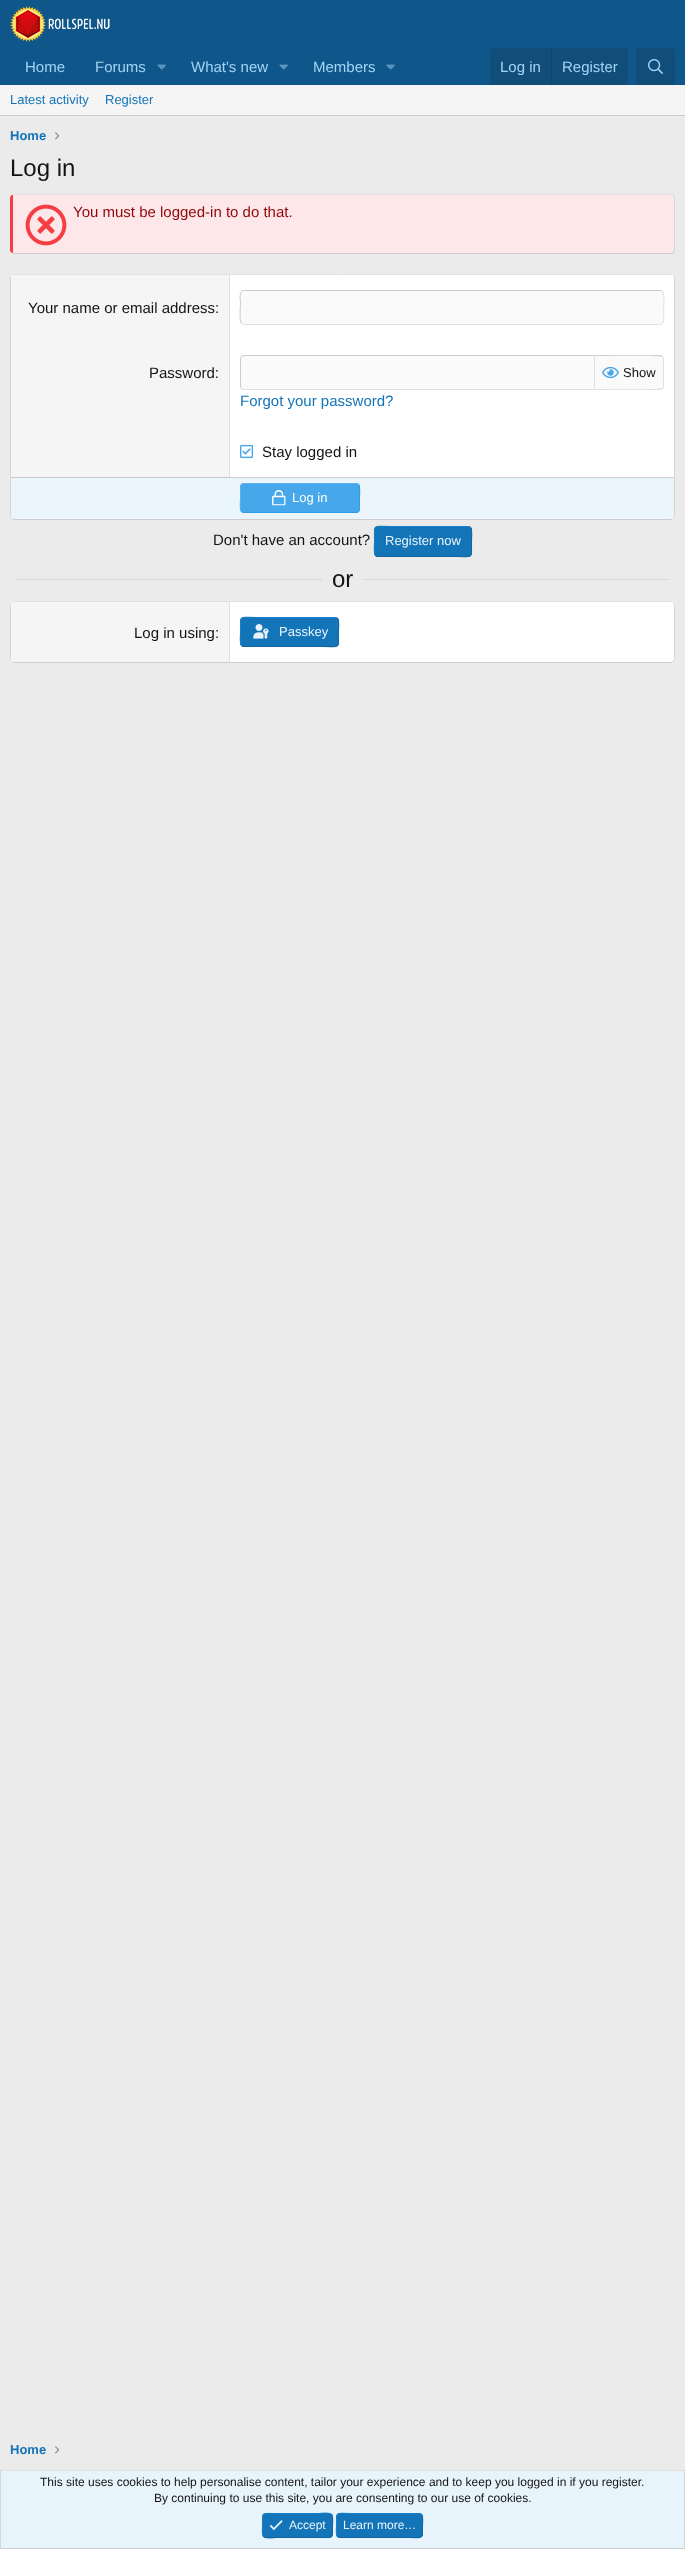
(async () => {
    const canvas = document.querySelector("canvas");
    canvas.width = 685;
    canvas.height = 2549;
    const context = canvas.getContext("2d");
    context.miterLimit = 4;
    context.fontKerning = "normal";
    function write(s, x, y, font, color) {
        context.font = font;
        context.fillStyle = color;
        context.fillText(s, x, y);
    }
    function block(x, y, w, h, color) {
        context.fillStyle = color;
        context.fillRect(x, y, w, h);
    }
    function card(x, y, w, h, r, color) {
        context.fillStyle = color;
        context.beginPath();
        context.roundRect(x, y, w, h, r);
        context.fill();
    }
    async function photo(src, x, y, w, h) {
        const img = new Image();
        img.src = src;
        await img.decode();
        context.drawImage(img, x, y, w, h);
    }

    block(0, 0, 685, 2549, "rgb(235, 235, 235)");
    block(0, 0, 685, 85, "rgb(15, 87, 138)");
    await photo("media/1.png", 10, 6, 100, 36);
    write("Home", 25, 72, "15px Liberation Sans", "rgb(163, 212, 245)");
    write("Forums", 95, 72, "15px Liberation Sans", "rgb(163, 212, 245)");
    await photo("media/2.png", 157, 64, 9, 6);
    write("What's new", 191, 72, "15px Liberation Sans", "rgb(163, 212, 245)");
    await photo("media/2.png", 279, 64, 9, 6);
    write("Members", 313, 72, "15px Liberation Sans", "rgb(163, 212, 245)");
    await photo("media/2.png", 386, 64, 9, 6);
    context.fillStyle = "rgb(16, 77, 120)";
    context.beginPath();
    context.roundRect(490, 48, 138, 37, [4, 4, 0, 0]);
    context.fill();
    write("Log in", 500, 72, "15px Liberation Sans", "rgb(163, 212, 245)");
    block(551, 48, 1, 37, "rgb(17, 68, 105)");
    write("Register", 562, 72, "15px Liberation Sans", "rgb(163, 212, 245)");
    context.fillStyle = "rgb(16, 77, 120)";
    context.beginPath();
    context.roundRect(636, 48, 39, 37, [4, 4, 0, 0]);
    context.fill();
    await photo("media/3.png", 648, 59, 15, 15);
    block(0, 85, 685, 30, "rgb(245, 245, 245)");
    block(0, 115, 685, 1, "rgb(204, 204, 204)");
    write("Latest activity", 10, 104, "13px Liberation Sans", "rgb(20, 116, 184)");
    write("Register", 105, 104, "13px Liberation Sans", "rgb(20, 116, 184)");
    write("Home", 10, 140, "bold 13px Liberation Sans", "rgb(20, 116, 184)");
    await photo("media/4.png", 55, 132, 4, 8);
    write("Log in", 10, 176, "24px Liberation Sans", "rgb(20, 20, 20)");
    context.fillStyle = "rgb(254, 231, 232)";
    context.beginPath();
    context.moveTo(14, 195);
    context.lineTo(671, 195);
    context.bezierCurveTo(673, 195, 674, 196, 674, 198);
    context.lineTo(674, 250);
    context.bezierCurveTo(674, 252, 673, 253, 671, 253);
    context.lineTo(14, 253);
    context.bezierCurveTo(13, 253, 13, 252, 13, 250);
    context.lineTo(13, 198);
    context.bezierCurveTo(13, 196, 13, 195, 14, 195);
    context.closePath();
    context.fill();
    context.fillStyle = "rgb(224, 224, 224)";
    context.beginPath();
    context.moveTo(14, 194);
    context.lineTo(12, 195);
    context.lineTo(13, 195);
    context.lineTo(671, 195);
    context.lineTo(673, 196);
    context.lineTo(674, 195);
    context.lineTo(671, 194);
    context.closePath();
    context.fill();
    context.fillStyle = "rgb(214, 214, 214)";
    context.beginPath();
    context.moveTo(675, 250);
    context.lineTo(675, 198);
    context.lineTo(674, 195);
    context.lineTo(673, 196);
    context.lineTo(674, 197);
    context.lineTo(674, 250);
    context.lineTo(673, 252);
    context.lineTo(674, 253);
    context.closePath();
    context.fill();
    context.fillStyle = "rgb(204, 204, 204)";
    context.beginPath();
    context.moveTo(14, 254);
    context.lineTo(671, 254);
    context.lineTo(674, 253);
    context.lineTo(673, 252);
    context.lineTo(671, 253);
    context.lineTo(13, 253);
    context.lineTo(12, 253);
    context.closePath();
    context.fill();
    context.fillStyle = "rgb(245, 61, 67)";
    context.beginPath();
    context.moveTo(10, 198);
    context.lineTo(10, 251);
    context.lineTo(12, 253);
    context.lineTo(13, 253);
    context.lineTo(13, 252);
    context.lineTo(13, 196);
    context.lineTo(13, 195);
    context.lineTo(12, 195);
    context.bezierCurveTo(11, 195, 10, 197, 10, 198);
    context.closePath();
    context.fill();
    await photo("media/5.png", 25, 204, 42, 42);
    write("You must be logged-in to do that.", 73, 217, "15px Liberation Sans", "rgb(145, 8, 12)");
    card(10, 274, 665, 246, 4, "rgb(255, 255, 255)");
    context.beginPath();
    context.moveTo(11.5, 275.5);
    context.lineTo(14, 274.5);
    context.lineTo(671, 274.5);
    context.lineTo(673.5, 275.5);
    context.strokeStyle = "rgb(224, 224, 224)";
    context.stroke();
    context.beginPath();
    context.moveTo(673.5, 275.5);
    context.bezierCurveTo(674, 276, 674.5, 277, 674.5, 278);
    context.lineTo(674.5, 516);
    context.bezierCurveTo(674.5, 517, 674, 518, 673.5, 518.5);
    context.strokeStyle = "rgb(214, 214, 214)";
    context.stroke();
    context.beginPath();
    context.moveTo(673.5, 518.5);
    context.lineTo(671, 519.5);
    context.lineTo(14, 519.5);
    context.lineTo(11.5, 518.5);
    context.strokeStyle = "rgb(204, 204, 204)";
    context.stroke();
    context.beginPath();
    context.moveTo(11.5, 518.5);
    context.bezierCurveTo(11, 518, 10.5, 517, 10.5, 516);
    context.lineTo(10.5, 278);
    context.bezierCurveTo(10.5, 277, 11, 276, 11.5, 275.5);
    context.strokeStyle = "rgb(214, 214, 214)";
    context.stroke();
    context.fillStyle = "rgb(245, 245, 245)";
    context.beginPath();
    context.roundRect(11, 275, 219, 65, [3, 0, 0, 0]);
    context.fill();
    block(229, 275, 1, 202, "rgb(224, 224, 224)");
    write("Your name or email address:", 28, 313, "15px Liberation Sans", "rgb(20, 20, 20)");
    card(240, 290, 424, 35, 4, "rgb(250, 250, 250)");
    context.beginPath();
    context.moveTo(662.5, 291.5);
    context.bezierCurveTo(665, 294, 663.5, 308.5, 663.5, 312);
    context.bezierCurveTo(663.5, 314.5, 665.5, 323.5, 660.5, 324.5);
    context.lineTo(243.5, 324.5);
    context.lineTo(241.5, 323.5);
    context.strokeStyle = "rgb(224, 224, 224)";
    context.stroke();
    context.beginPath();
    context.moveTo(241.5, 323.5);
    context.bezierCurveTo(239, 321, 240.5, 306.5, 240.5, 303);
    context.bezierCurveTo(240.5, 300.5, 238.5, 291.5, 243.5, 290.5);
    context.lineTo(660.5, 290.5);
    context.lineTo(662.5, 291.5);
    context.strokeStyle = "rgb(204, 204, 204)";
    context.stroke();
    block(11, 340, 218, 137, "rgb(245, 245, 245)");
    write("Password:", 149, 378, "15px Liberation Sans", "rgb(20, 20, 20)");
    context.fillStyle = "rgb(250, 250, 250)";
    context.beginPath();
    context.roundRect(240, 355, 354, 35, [4, 0, 0, 4]);
    context.fill();
    context.fillStyle = "rgb(204, 204, 204)";
    context.beginPath();
    context.moveTo(244, 355);
    context.lineTo(241, 356);
    context.lineTo(242, 357);
    context.lineTo(244, 356);
    context.lineTo(594, 356);
    context.lineTo(594, 355);
    context.closePath();
    context.fill();
    context.fillStyle = "rgb(224, 224, 224)";
    context.beginPath();
    context.moveTo(594, 390);
    context.lineTo(594, 389);
    context.lineTo(244, 389);
    context.lineTo(242, 388);
    context.lineTo(241, 389);
    context.lineTo(244, 390);
    context.closePath();
    context.fill();
    context.fillStyle = "rgb(204, 204, 204)";
    context.beginPath();
    context.moveTo(240, 359);
    context.lineTo(240, 386);
    context.bezierCurveTo(240, 387, 240.5, 388, 241, 389);
    context.lineTo(242, 388);
    context.bezierCurveTo(241, 388, 241, 387, 241, 386);
    context.lineTo(241, 359);
    context.bezierCurveTo(241, 358, 241, 357, 242, 357);
    context.lineTo(241, 356);
    context.bezierCurveTo(240.5, 357, 240, 358, 240, 359);
    context.closePath();
    context.fill();
    context.fillStyle = "rgb(250, 250, 250)";
    context.beginPath();
    context.roundRect(594, 355, 70, 35, [0, 4, 4, 0]);
    context.fill();
    context.fillStyle = "rgb(204, 204, 204)";
    context.beginPath();
    context.moveTo(594, 355);
    context.lineTo(595, 356);
    context.bezierCurveTo(602, 356, 661, 355, 662, 357);
    context.lineTo(663, 356);
    context.lineTo(660, 355);
    context.closePath();
    context.fill();
    context.fillStyle = "rgb(224, 224, 224)";
    context.beginPath();
    context.moveTo(664, 386);
    context.lineTo(664, 359);
    context.bezierCurveTo(664, 358, 663.5, 357, 663, 356);
    context.lineTo(662, 357);
    context.bezierCurveTo(663, 357, 663, 358, 663, 359);
    context.lineTo(663, 386);
    context.bezierCurveTo(663, 387, 663, 388, 662, 388);
    context.lineTo(663, 389);
    context.bezierCurveTo(663.5, 388, 664, 387, 664, 386);
    context.closePath();
    context.fill();
    context.beginPath();
    context.moveTo(660, 390);
    context.lineTo(663, 389);
    context.lineTo(662, 388);
    context.bezierCurveTo(661, 390, 602, 389, 595, 389);
    context.lineTo(594, 390);
    context.closePath();
    context.fill();
    context.beginPath();
    context.moveTo(594, 355);
    context.lineTo(594, 390);
    context.lineTo(595, 389);
    context.lineTo(595, 356);
    context.closePath();
    context.fill();
    await photo("media/6.png", 602, 366, 17, 13);
    write("Show", 623, 377, "13px Liberation Sans", "rgb(20, 20, 20)");
    write("Forgot your password?", 240, 406, "15px Liberation Sans", "rgb(20, 116, 184)");
    await photo("media/7.png", 240, 444, 13, 15);
    write("Stay logged in", 262, 457, "15px Liberation Sans", "rgb(20, 20, 20)");
    context.fillStyle = "rgba(232, 244, 252, 0.9)";
    context.beginPath();
    context.roundRect(11, 477, 663, 42, [0, 0, 3, 3]);
    context.fill();
    block(11, 477, 663, 1, "rgb(204, 204, 204)");
    card(240, 483, 120, 30, 4, "rgb(71, 167, 235)");
    context.beginPath();
    context.moveTo(358.5, 484.5);
    context.bezierCurveTo(360.5, 486.5, 359.5, 495, 359.5, 498);
    context.lineTo(359.5, 505.5);
    context.bezierCurveTo(359.5, 508, 360, 512.5, 356, 512.5);
    context.lineTo(243.5, 512.5);
    context.lineTo(241.5, 511.5);
    context.strokeStyle = "rgb(48, 156, 232)";
    context.stroke();
    context.beginPath();
    context.moveTo(241.5, 511.5);
    context.bezierCurveTo(239.5, 509.5, 240.5, 501, 240.5, 498);
    context.lineTo(240.5, 490.5);
    context.bezierCurveTo(240.5, 488, 240, 483.5, 244, 483.5);
    context.lineTo(356.5, 483.5);
    context.lineTo(358.5, 484.5);
    context.strokeStyle = "rgb(94, 178, 237)";
    context.stroke();
    await photo("media/8.png", 272, 490, 14, 16);
    write("Log in", 292, 502, "13px Liberation Sans", "rgb(255, 255, 255)");
    write("Don't have an account?", 213, 545, "15px Liberation Sans", "rgb(20, 20, 20)");
    card(374, 526, 98, 31, 4, "rgb(20, 116, 184)");
    context.beginPath();
    context.moveTo(470.5, 527.5);
    context.bezierCurveTo(472.5, 530, 471.5, 538.5, 471.5, 541.5);
    context.bezierCurveTo(471.5, 560, 473.5, 556.5, 453, 556.5);
    context.lineTo(378, 556.5);
    context.lineTo(375.5, 555.5);
    context.strokeStyle = "rgb(18, 101, 161)";
    context.stroke();
    context.beginPath();
    context.moveTo(375.5, 555.5);
    context.bezierCurveTo(373.5, 553, 374.5, 544.5, 374.5, 541.5);
    context.bezierCurveTo(374.5, 523, 372.5, 526.5, 393, 526.5);
    context.lineTo(468, 526.5);
    context.lineTo(470.5, 527.5);
    context.strokeStyle = "rgb(23, 130, 207)";
    context.stroke();
    write("Register now", 385, 545, "13px Liberation Sans", "rgb(232, 244, 252)");
    block(16, 579, 306, 1, "rgb(214, 214, 214)");
    write("or", 332, 587, "24px Liberation Sans", "rgb(20, 20, 20)");
    block(363, 579, 306, 1, "rgb(214, 214, 214)");
    card(10, 601, 665, 62, 4, "rgb(255, 255, 255)");
    context.beginPath();
    context.moveTo(11.5, 602.5);
    context.lineTo(14, 601.5);
    context.lineTo(671, 601.5);
    context.lineTo(673.5, 602.5);
    context.strokeStyle = "rgb(224, 224, 224)";
    context.stroke();
    context.beginPath();
    context.moveTo(673.5, 602.5);
    context.lineTo(674.5, 604.5);
    context.lineTo(674.5, 659.5);
    context.lineTo(673.5, 661.5);
    context.strokeStyle = "rgb(214, 214, 214)";
    context.stroke();
    context.beginPath();
    context.moveTo(673.5, 661.5);
    context.lineTo(671, 662.5);
    context.lineTo(14, 662.5);
    context.lineTo(11.5, 661.5);
    context.strokeStyle = "rgb(204, 204, 204)";
    context.stroke();
    context.beginPath();
    context.moveTo(11.5, 661.5);
    context.lineTo(10.5, 659.5);
    context.lineTo(10.5, 604.5);
    context.lineTo(11.5, 602.5);
    context.strokeStyle = "rgb(214, 214, 214)";
    context.stroke();
    context.fillStyle = "rgb(245, 245, 245)";
    context.beginPath();
    context.roundRect(11, 602, 219, 60, [3, 0, 0, 3]);
    context.fill();
    block(229, 602, 1, 60, "rgb(224, 224, 224)");
    write("Log in using:", 134, 638, "15px Liberation Sans", "rgb(20, 20, 20)");
    card(240, 617, 99, 30, 4, "rgb(20, 116, 184)");
    context.beginPath();
    context.moveTo(337.5, 618.5);
    context.bezierCurveTo(339.5, 620.5, 338.5, 629, 338.5, 632);
    context.bezierCurveTo(338.5, 650, 340.5, 646.5, 320, 646.5);
    context.lineTo(244, 646.5);
    context.lineTo(241.5, 645.5);
    context.strokeStyle = "rgb(18, 101, 161)";
    context.stroke();
    context.beginPath();
    context.moveTo(241.5, 645.5);
    context.bezierCurveTo(239.5, 643.5, 240.5, 635, 240.5, 632);
    context.bezierCurveTo(240.5, 614, 238.5, 617.5, 259, 617.5);
    context.lineTo(335, 617.5);
    context.lineTo(337.5, 618.5);
    context.strokeStyle = "rgb(23, 130, 207)";
    context.stroke();
    await photo("media/9.png", 253, 624, 16, 15);
    write("Passkey", 279, 636, "13px Liberation Sans", "rgb(232, 244, 252)");
    write("Home", 10, 2454, "bold 13px Liberation Sans", "rgb(20, 116, 184)");
    await photo("media/4.png", 55, 2446, 4, 8);
    block(1, 2471, 683, 77, "rgb(232, 244, 252)");
    block(0, 2470, 685, 1, "rgb(224, 224, 224)");
    block(684, 2470, 1, 79, "rgb(214, 214, 214)");
    block(0, 2548, 685, 1, "rgb(204, 204, 204)");
    block(0, 2470, 1, 79, "rgb(214, 214, 214)");
    write("This site uses cookies to help personalise content, tailor your experience and to keep you logged in if you register.", 40, 2486, "12px Liberation Sans", "rgb(20, 20, 20)");
    write("By continuing to use this site, you are consenting to our use of cookies.", 154, 2502, "12px Liberation Sans", "rgb(20, 20, 20)");
    card(262, 2513, 71, 25, 4, "rgb(20, 116, 184)");
    context.beginPath();
    context.moveTo(331.5, 2514.5);
    context.bezierCurveTo(333.5, 2517, 332.5, 2523, 332.5, 2525.5);
    context.bezierCurveTo(332.5, 2539.5, 333.5, 2537.5, 318.5, 2537.5);
    context.lineTo(276.5, 2537.5);
    context.bezierCurveTo(275.5, 2537.5, 266, 2539, 263.5, 2536.5);
    context.strokeStyle = "rgb(18, 101, 161)";
    context.stroke();
    context.beginPath();
    context.moveTo(263.5, 2536.5);
    context.bezierCurveTo(261.5, 2534, 262.5, 2528, 262.5, 2525.5);
    context.bezierCurveTo(262.5, 2511.5, 261.5, 2513.5, 276.5, 2513.5);
    context.lineTo(318.5, 2513.5);
    context.bezierCurveTo(319.5, 2513.5, 329, 2512, 331.5, 2514.5);
    context.strokeStyle = "rgb(23, 130, 207)";
    context.stroke();
    await photo("media/10.png", 269, 2520, 14, 11);
    write("Accept", 289, 2529, "12px Liberation Sans", "rgb(232, 244, 252)");
    card(336, 2513, 87, 25, 4, "rgb(20, 116, 184)");
    context.beginPath();
    context.moveTo(421.5, 2514.5);
    context.bezierCurveTo(423.5, 2517, 422.5, 2523, 422.5, 2525.5);
    context.bezierCurveTo(422.5, 2540.5, 423, 2537.5, 406, 2537.5);
    context.lineTo(340, 2537.5);
    context.lineTo(337.5, 2536.5);
    context.strokeStyle = "rgb(18, 101, 161)";
    context.stroke();
    context.beginPath();
    context.moveTo(337.5, 2536.5);
    context.bezierCurveTo(335.5, 2534, 336.5, 2528, 336.5, 2525.5);
    context.bezierCurveTo(336.5, 2510.5, 336, 2513.5, 353, 2513.5);
    context.lineTo(419, 2513.5);
    context.lineTo(421.5, 2514.5);
    context.strokeStyle = "rgb(23, 130, 207)";
    context.stroke();
    write("Learn more…", 343, 2529, "12px Liberation Sans", "rgb(232, 244, 252)");
})();
